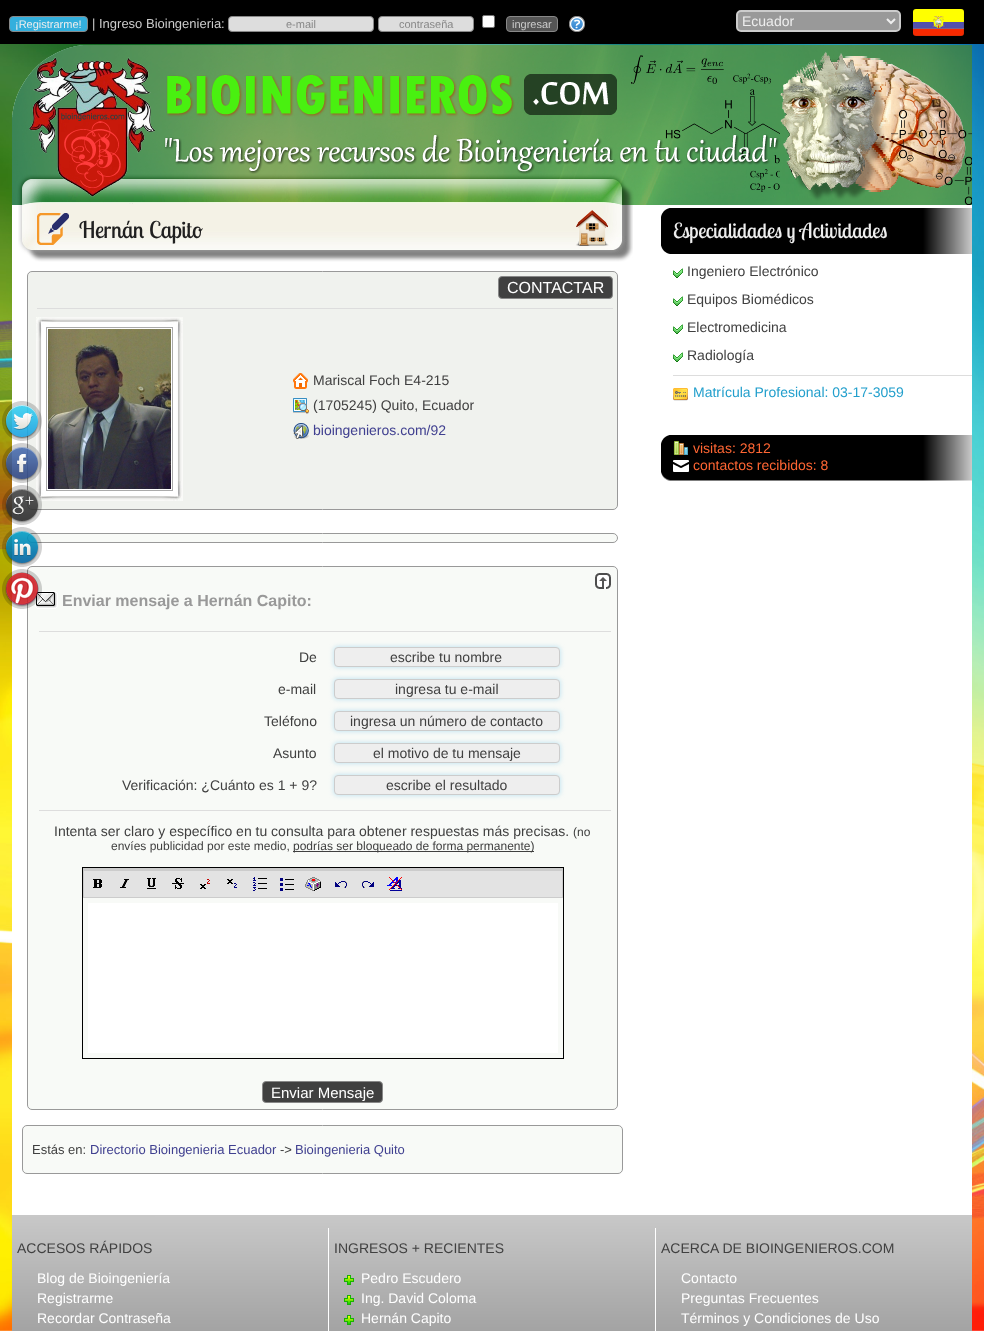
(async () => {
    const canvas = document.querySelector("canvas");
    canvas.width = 984;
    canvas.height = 1331;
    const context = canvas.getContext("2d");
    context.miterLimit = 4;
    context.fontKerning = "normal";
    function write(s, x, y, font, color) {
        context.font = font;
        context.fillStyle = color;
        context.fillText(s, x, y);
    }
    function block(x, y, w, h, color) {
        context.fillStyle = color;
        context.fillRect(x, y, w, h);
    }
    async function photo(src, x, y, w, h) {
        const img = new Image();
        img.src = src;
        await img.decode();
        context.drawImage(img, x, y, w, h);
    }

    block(0, 0, 984, 1331, "rgb(255, 255, 255)");
    block(0, 0, 984, 44, "rgb(0, 0, 0)");
    context.fillStyle = "rgb(51, 175, 221)";
    context.beginPath();
    context.roundRect(9.5, 16.5, 78, 15, 3.5);
    context.fill();
    context.strokeStyle = "rgb(136, 136, 136)";
    context.stroke();
    write("¡Registrarme!", 15, 28, "11px Liberation Sans", "rgb(238, 238, 238)");
    write("| Ingreso Bioingenieria:", 92, 28, "13px Liberation Sans", "rgb(204, 204, 204)");
    context.fillStyle = "rgb(221, 221, 221)";
    context.beginPath();
    context.roundRect(228.5, 16.5, 145, 15, 3.5);
    context.fill();
    context.stroke();
    write("e-mail", 286, 28, "11px Liberation Sans", "rgb(136, 136, 136)");
    context.fillStyle = "rgb(221, 221, 221)";
    context.beginPath();
    context.roundRect(378.5, 16.5, 95, 15, 3.5);
    context.fill();
    context.stroke();
    write("contraseña", 399, 28, "11px Liberation Sans", "rgb(136, 136, 136)");
    context.fillStyle = "rgb(255, 255, 255)";
    context.beginPath();
    context.roundRect(482.5, 15.5, 12, 12, 1.5);
    context.fill();
    context.strokeStyle = "rgb(118, 118, 118)";
    context.stroke();
    context.fillStyle = "rgb(85, 85, 85)";
    context.beginPath();
    context.roundRect(506.5, 16.5, 51, 15, 3.5);
    context.fill();
    context.strokeStyle = "rgb(136, 136, 136)";
    context.stroke();
    write("ingresar", 512, 28, "11px Liberation Sans", "rgb(204, 204, 204)");
    await photo("media/1.png", 569, 16, 16, 16);
    context.fillStyle = "rgb(153, 153, 153)";
    context.beginPath();
    context.roundRect(737, 11, 163, 20, 4);
    context.fill();
    context.strokeStyle = "rgb(204, 204, 204)";
    context.lineWidth = 2;
    context.stroke();
    context.beginPath();
    context.moveTo(887, 19);
    context.lineTo(891, 23);
    context.lineTo(895, 19);
    context.strokeStyle = "rgb(238, 238, 238)";
    context.stroke();
    write("Ecuador", 742, 26, "14px Liberation Sans", "rgb(238, 238, 238)");
    await photo("media/2.png", 913, 9, 51, 27);
    await photo("media/3.png", 0, 44, 984, 1287);
    await photo("media/4.png", 12, 45, 960, 160);
    block(12, 205, 960, 1010, "rgb(255, 255, 255)");
    await photo("media/5.png", 18, 205, 501, 57);
    await photo("media/6.png", 37, 213, 32, 32);
    write("Hernán Capito", 79, 238, "23px Lobster Two", "rgb(32, 32, 32)");
    await photo("media/7.png", 519, 205, 114, 57);
    await photo("media/8.png", 661, 208, 311, 46);
    write("Especialidades y Actividades", 673, 238, "20.75px Lobster Two", "rgb(238, 238, 238)");
    context.fillStyle = "rgb(240, 242, 238)";
    context.beginPath();
    context.roundRect(27.5, 271.5, 590, 238, 4.5);
    context.fill();
    context.strokeStyle = "rgb(153, 153, 153)";
    context.lineWidth = 1;
    context.stroke();
    context.fillStyle = "rgb(64, 64, 64)";
    context.beginPath();
    context.roundRect(498.5, 276.5, 114, 22, 3.5);
    context.fill();
    context.strokeStyle = "rgb(136, 136, 136)";
    context.stroke();
    write("CONTACTAR", 507, 293, "16px Liberation Sans", "rgb(255, 255, 255)");
    block(37, 308, 576, 1, "rgb(221, 221, 221)");
    await photo("media/9.png", 36, 317, 147, 163);
    await photo("media/10.png", 36, 480, 118, 21);
    await photo("media/11.png", 154, 318, 29, 183);
    await photo("media/12.png", 154, 481, 28, 20);
    await photo("media/13.png", 46, 327, 127, 164);
    await photo("media/14.png", 293, 373, 15, 16);
    write("Mariscal Foch E4-215", 313, 385, "14px Liberation Sans", "rgb(64, 64, 64)");
    await photo("media/15.png", 293, 398, 16, 16);
    write("(1705245) Quito, Ecuador", 313, 410, "14px Liberation Sans", "rgb(64, 64, 64)");
    await photo("media/16.png", 293, 423, 16, 16);
    write("bioingenieros.com/92", 313, 435, "14px Liberation Sans", "rgb(64, 64, 144)");
    context.fillStyle = "rgb(248, 250, 247)";
    context.beginPath();
    context.roundRect(27.5, 533.5, 590, 9, 4.5);
    context.fill();
    context.strokeStyle = "rgb(153, 153, 153)";
    context.stroke();
    context.beginPath();
    context.roundRect(27.5, 566.5, 590, 543, 4.5);
    context.fill();
    context.stroke();
    await photo("media/17.png", 595, 573, 16, 16);
    await photo("media/18.png", 35, 591, 23, 18);
    write("Enviar mensaje a Hernán Capito:", 62, 606, "bold 16px Liberation Sans", "rgb(153, 153, 153)");
    block(39, 631, 572, 1, "rgb(221, 221, 221)");
    write("De", 299, 662, "14px Liberation Sans", "rgb(64, 64, 64)");
    context.fillStyle = "rgb(181, 223, 241)";
    context.filter = "blur(2.5px)";
    context.beginPath();
    context.roundRect(334, 647, 226, 20, 4);
    context.fill();
    context.filter = "none";
    context.fillStyle = "rgb(238, 238, 238)";
    context.beginPath();
    context.roundRect(334.5, 647.5, 225, 19, 3.5);
    context.fill();
    context.strokeStyle = "rgb(204, 204, 204)";
    context.stroke();
    write("escribe tu nombre", 390, 662, "14px Liberation Sans", "rgb(64, 64, 64)");
    write("e-mail", 278, 694, "14px Liberation Sans", "rgb(64, 64, 64)");
    context.fillStyle = "rgb(181, 223, 241)";
    context.filter = "blur(2.5px)";
    context.beginPath();
    context.roundRect(334, 679, 226, 20, 4);
    context.fill();
    context.filter = "none";
    context.fillStyle = "rgb(238, 238, 238)";
    context.beginPath();
    context.roundRect(334.5, 679.5, 225, 19, 3.5);
    context.fill();
    context.stroke();
    write("ingresa tu e-mail", 395, 694, "14px Liberation Sans", "rgb(64, 64, 64)");
    write("Teléfono", 264, 726, "14px Liberation Sans", "rgb(64, 64, 64)");
    context.fillStyle = "rgb(181, 223, 241)";
    context.filter = "blur(2.5px)";
    context.beginPath();
    context.roundRect(334, 711, 226, 20, 4);
    context.fill();
    context.filter = "none";
    context.fillStyle = "rgb(238, 238, 238)";
    context.beginPath();
    context.roundRect(334.5, 711.5, 225, 19, 3.5);
    context.fill();
    context.stroke();
    write("ingresa un número de contacto", 350, 726, "14px Liberation Sans", "rgb(64, 64, 64)");
    write("Asunto", 273, 758, "14px Liberation Sans", "rgb(64, 64, 64)");
    context.fillStyle = "rgb(181, 223, 241)";
    context.filter = "blur(2.5px)";
    context.beginPath();
    context.roundRect(334, 743, 226, 20, 4);
    context.fill();
    context.filter = "none";
    context.fillStyle = "rgb(238, 238, 238)";
    context.beginPath();
    context.roundRect(334.5, 743.5, 225, 19, 3.5);
    context.fill();
    context.stroke();
    write("el motivo de tu mensaje", 373, 758, "14px Liberation Sans", "rgb(64, 64, 64)");
    write("Verificación: ¿Cuánto es 1 + 9?", 122, 790, "14px Liberation Sans", "rgb(64, 64, 64)");
    context.fillStyle = "rgb(181, 223, 241)";
    context.filter = "blur(2.5px)";
    context.beginPath();
    context.roundRect(334, 775, 226, 20, 4);
    context.fill();
    context.filter = "none";
    context.fillStyle = "rgb(238, 238, 238)";
    context.beginPath();
    context.roundRect(334.5, 775.5, 225, 19, 3.5);
    context.fill();
    context.stroke();
    write("escribe el resultado", 386, 790, "14px Liberation Sans", "rgb(64, 64, 64)");
    block(39, 810, 572, 1, "rgb(221, 221, 221)");
    write("Intenta ser claro y específico en tu consulta para obtener respuestas más precisas.", 54, 836, "14px Liberation Sans", "rgb(64, 64, 64)");
    write("(no", 573, 836, "12px Liberation Sans", "rgb(64, 64, 64)");
    write("envíes publicidad por este medio,", 111, 850, "12px Liberation Sans", "rgb(64, 64, 64)");
    block(293, 851, 241, 1, "rgb(64, 64, 64)");
    write("podrías ser bloqueado de forma permanente)", 293, 850, "12px Liberation Sans", "rgb(64, 64, 64)");
    context.strokeStyle = "rgb(0, 0, 0)";
    context.strokeRect(82.5, 867.5, 481, 191);
    block(83, 868, 480, 30, "rgb(204, 204, 204)");
    block(84, 871, 478, 26, "rgb(227, 227, 227)");
    await photo("media/19.png", 93, 879, 9, 9);
    await photo("media/20.png", 120, 879, 9, 9);
    await photo("media/21.png", 147, 878, 9, 11);
    await photo("media/22.png", 172, 878, 12, 11);
    await photo("media/23.png", 200, 879, 10, 10);
    await photo("media/24.png", 227, 879, 10, 9);
    await photo("media/25.png", 253, 877, 14, 14);
    await photo("media/26.png", 280, 878, 14, 13);
    await photo("media/27.png", 305, 877, 16, 14);
    await photo("media/28.png", 335, 881, 12, 7);
    await photo("media/29.png", 362, 881, 12, 7);
    await photo("media/30.png", 387, 877, 15, 14);
    block(88, 903, 470, 150, "rgb(255, 255, 255)");
    context.fillStyle = "rgb(64, 64, 64)";
    context.beginPath();
    context.roundRect(262.5, 1081.5, 120, 21, 3.5);
    context.fill();
    context.strokeStyle = "rgb(136, 136, 136)";
    context.stroke();
    write("Enviar Mensaje", 271, 1098, "15px Liberation Sans", "rgb(255, 255, 255)");
    context.fillStyle = "rgb(248, 250, 247)";
    context.beginPath();
    context.roundRect(22.5, 1125.5, 600, 48, 4.5);
    context.fill();
    context.strokeStyle = "rgb(153, 153, 153)";
    context.stroke();
    write("Estás en:", 32, 1154, "13px Liberation Sans", "rgb(64, 64, 64)");
    write("Directorio Bioingenieria Ecuador", 90, 1154, "13px Liberation Sans", "rgb(64, 64, 144)");
    write("->", 280, 1154, "13px Liberation Sans", "rgb(64, 64, 64)");
    write("Bioingenieria Quito", 295, 1154, "13px Liberation Sans", "rgb(64, 64, 144)");
    await photo("media/31.png", 673, 268, 10, 10);
    write("Ingeniero Electrónico", 687, 276, "14px Liberation Sans", "rgb(64, 64, 64)");
    await photo("media/31.png", 673, 296, 10, 10);
    write("Equipos Biomédicos", 687, 304, "14px Liberation Sans", "rgb(64, 64, 64)");
    await photo("media/31.png", 673, 324, 10, 10);
    write("Electromedicina", 687, 332, "14px Liberation Sans", "rgb(64, 64, 64)");
    await photo("media/31.png", 673, 352, 10, 10);
    write("Radiología", 687, 360, "14px Liberation Sans", "rgb(64, 64, 64)");
    block(673, 375, 299, 1, "rgb(221, 221, 221)");
    await photo("media/32.png", 673, 388, 15, 13);
    write("Matrícula Profesional: 03-17-3059", 693, 397, "14px Liberation Sans", "rgb(34, 159, 204)");
    await photo("media/33.png", 661, 435, 311, 46);
    await photo("media/34.png", 673, 441, 15, 14);
    write("visitas: 2812", 693, 453, "14px Liberation Sans", "rgb(255, 102, 51)");
    await photo("media/35.png", 673, 460, 16, 12);
    write("contactos recibidos: 8", 693, 470, "14px Liberation Sans", "rgb(255, 102, 51)");
    await photo("media/36.png", 12, 1215, 960, 116);
    write("ACCESOS RÁPIDOS", 17, 1253, "14px Liberation Sans", "rgb(64, 64, 64)");
    write("Blog de Bioingeniería", 37, 1283, "14px Liberation Sans", "rgb(255, 255, 255)");
    write("Registrarme", 37, 1303, "14px Liberation Sans", "rgb(255, 255, 255)");
    write("Recordar Contraseña", 37, 1323, "14px Liberation Sans", "rgb(255, 255, 255)");
    block(328, 1228, 1, 103, "rgb(255, 255, 255)");
    write("INGRESOS + RECIENTES", 334, 1253, "14px Liberation Sans", "rgb(64, 64, 64)");
    await photo("media/37.png", 344, 1275, 10, 10);
    write("Pedro Escudero", 361, 1283, "14px Liberation Sans", "rgb(255, 255, 255)");
    await photo("media/38.png", 344, 1295, 10, 10);
    write("Ing. David Coloma", 361, 1303, "14px Liberation Sans", "rgb(255, 255, 255)");
    await photo("media/39.png", 344, 1315, 10, 10);
    write("Hernán Capito", 361, 1323, "14px Liberation Sans", "rgb(255, 255, 255)");
    block(655, 1228, 1, 103, "rgb(255, 255, 255)");
    write("ACERCA DE BIOINGENIEROS.COM", 661, 1253, "14px Liberation Sans", "rgb(64, 64, 64)");
    write("Contacto", 681, 1283, "14px Liberation Sans", "rgb(255, 255, 255)");
    write("Preguntas Frecuentes", 681, 1303, "14px Liberation Sans", "rgb(255, 255, 255)");
    write("Términos y Condiciones de Uso", 681, 1323, "14px Liberation Sans", "rgb(255, 255, 255)");
    await photo("media/40.png", 2, 401, 40, 40);
    await photo("media/41.png", 2, 443, 40, 40);
    await photo("media/42.png", 2, 485, 40, 40);
    await photo("media/43.png", 2, 527, 40, 40);
    await photo("media/44.png", 2, 569, 40, 40);
})();
